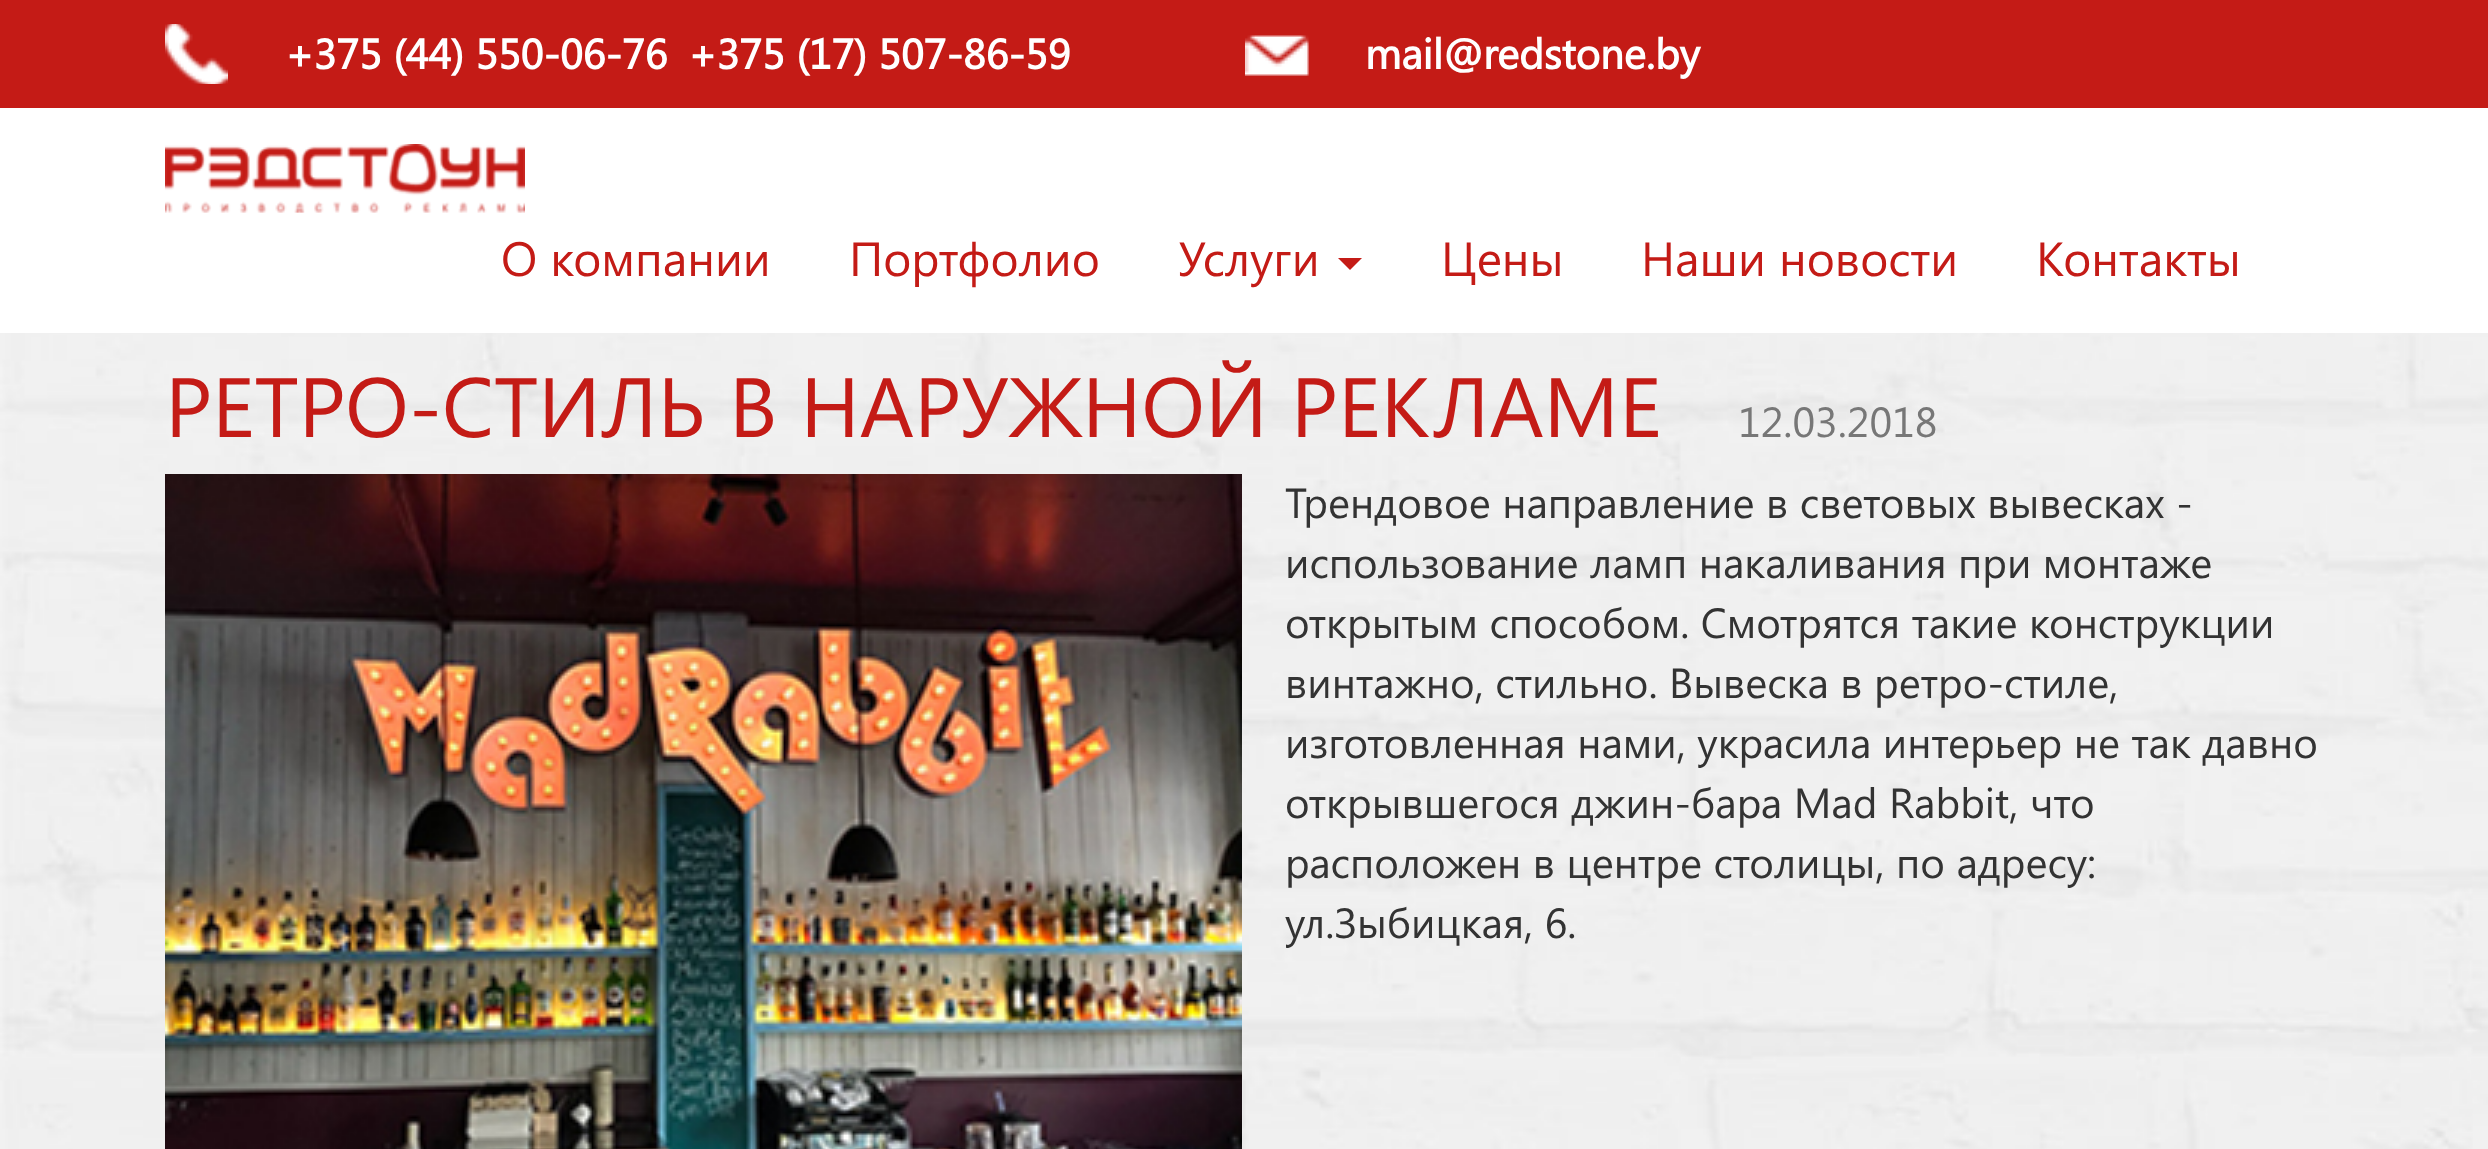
(async () => {
    const canvas = document.querySelector("canvas");
    canvas.width = 2488;
    canvas.height = 1149;
    const context = canvas.getContext("2d");
    context.miterLimit = 4;
    context.fontKerning = "normal";
    function write(s, x, y, font, color) {
        context.font = font;
        context.fillStyle = color;
        context.fillText(s, x, y);
    }
    function block(x, y, w, h, color) {
        context.fillStyle = color;
        context.fillRect(x, y, w, h);
    }
    async function photo(src, x, y, w, h) {
        const img = new Image();
        img.src = src;
        await img.decode();
        context.drawImage(img, x, y, w, h);
    }

    block(0, 0, 2488, 1149, "rgb(255, 255, 255)");
    await photo("media/1.png", 0, 333, 2488, 816);
    block(0, 0, 2488, 108, "rgb(196, 27, 22)");
    await photo("media/2.png", 165, 24, 63, 60);
    write("+375 (44) 550-06-76", 285, 69, "bold 42px Segoe UI", "rgb(255, 255, 255)");
    write("+375 (17) 507-86-59", 688, 69, "bold 42px Segoe UI", "rgb(255, 255, 255)");
    await photo("media/3.png", 1245, 35, 64, 41);
    write("mail@redstone.by", 1365, 69, "bold 42px Segoe UI", "rgb(255, 255, 255)");
    await photo("media/4.png", 165, 144, 360, 69);
    write("О компании", 501, 276, "48px Segoe UI", "rgb(196, 27, 22)");
    write("Портфолио", 849, 276, "48px Segoe UI", "rgb(196, 27, 22)");
    write("Услуги", 1178, 276, "48px Segoe UI", "rgb(196, 27, 22)");
    context.beginPath();
    context.moveTo(1338, 258);
    context.lineTo(1362, 258);
    context.lineTo(1350, 270);
    context.closePath();
    context.fill();
    write("Цены", 1441, 276, "48px Segoe UI", "rgb(196, 27, 22)");
    write("Наши новости", 1641, 276, "48px Segoe UI", "rgb(196, 27, 22)");
    write("Контакты", 2036, 276, "48px Segoe UI", "rgb(196, 27, 22)");
    write("РЕТРО-СТИЛЬ В НАРУЖНОЙ РЕКЛАМЕ", 165, 437, "84px Segoe UI", "rgb(196, 27, 22)");
    write("12.03.2018", 1738, 437, "42px Segoe UI", "rgb(119, 119, 119)");
    await photo("media/5.png", 165, 474, 1077, 675);
    write("Трендовое направление в световых вывесках -", 1285, 518, "42px Segoe UI", "rgb(51, 51, 51)");
    write("использование ламп накаливания при монтаже", 1285, 578, "42px Segoe UI", "rgb(51, 51, 51)");
    write("открытым способом. Смотрятся такие конструкции", 1285, 638, "42px Segoe UI", "rgb(51, 51, 51)");
    write("винтажно, стильно. Вывеска в ретро-стиле,", 1285, 698, "42px Segoe UI", "rgb(51, 51, 51)");
    write("изготовленная нами, украсила интерьер не так давно", 1285, 758, "42px Segoe UI", "rgb(51, 51, 51)");
    write("открывшегося джин-бара Mad Rabbit, что", 1285, 818, "42px Segoe UI", "rgb(51, 51, 51)");
    write("расположен в центре столицы, по адресу:", 1285, 878, "42px Segoe UI", "rgb(51, 51, 51)");
    write("ул.Зыбицкая, 6.", 1285, 938, "42px Segoe UI", "rgb(51, 51, 51)");
})();
